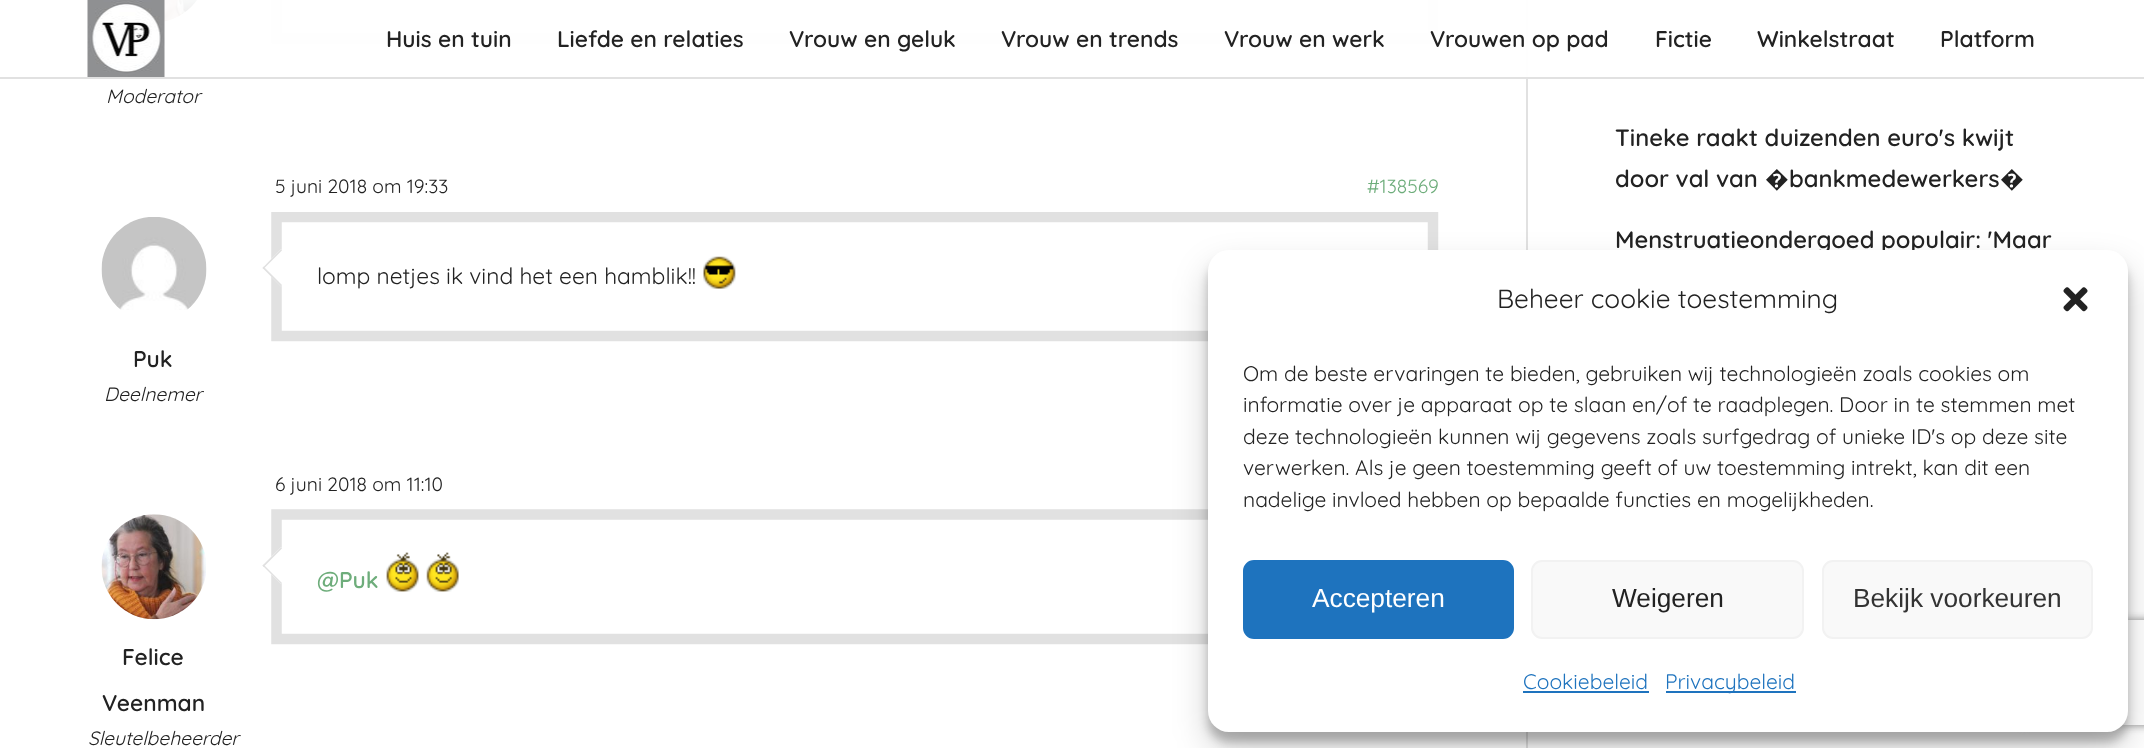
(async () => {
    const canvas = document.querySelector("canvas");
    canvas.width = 2144;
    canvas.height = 748;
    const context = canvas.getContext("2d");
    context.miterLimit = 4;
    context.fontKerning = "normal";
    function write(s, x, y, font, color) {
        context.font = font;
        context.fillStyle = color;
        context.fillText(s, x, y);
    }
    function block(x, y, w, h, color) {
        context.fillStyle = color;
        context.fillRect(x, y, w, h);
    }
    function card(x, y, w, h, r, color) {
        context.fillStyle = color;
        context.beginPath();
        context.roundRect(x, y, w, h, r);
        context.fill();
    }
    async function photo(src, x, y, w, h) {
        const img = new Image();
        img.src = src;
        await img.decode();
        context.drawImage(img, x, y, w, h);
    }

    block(0, 0, 2144, 748, "rgb(255, 255, 255)");
    block(1526, 0, 2, 748, "rgb(225, 225, 225)");
    context.beginPath();
    context.moveTo(276.5, -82);
    context.lineTo(1433, -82);
    context.lineTo(1433, 38.5);
    context.lineTo(276.5, 38.5);
    context.closePath();
    context.strokeStyle = "rgb(225, 225, 225)";
    context.lineWidth = 10.5;
    context.stroke();
    await photo("media/2.png", 164, 0, 33, 22);
    block(164, 0, 1364, 77, "rgba(255, 255, 255, 0.95)");
    block(0, 77, 2144, 2, "rgb(225, 225, 225)");
    await photo("media/1.png", 87, 0, 78, 77);
    write("Huis en tuin", 386, 47, "600 22.75px Quicksand", "rgb(34, 34, 34)");
    write("Liefde en relaties", 557, 47, "600 22.75px Quicksand", "rgb(34, 34, 34)");
    write("Vrouw en geluk", 789, 47, "600 22.75px Quicksand", "rgb(34, 34, 34)");
    write("Vrouw en trends", 1001, 47, "600 22.75px Quicksand", "rgb(34, 34, 34)");
    write("Vrouw en werk", 1224, 47, "600 22.75px Quicksand", "rgb(34, 34, 34)");
    write("Vrouwen op pad", 1430, 47, "600 22.75px Quicksand", "rgb(34, 34, 34)");
    write("Fictie", 1655, 47, "600 22.75px Quicksand", "rgb(34, 34, 34)");
    write("Winkelstraat", 1757, 47, "600 22.75px Quicksand", "rgb(34, 34, 34)");
    write("Platform", 1940, 47, "600 22.75px Quicksand", "rgb(34, 34, 34)");
    write("Moderator", 106, 103, "italic 19.25px Quicksand", "rgb(34, 34, 34)");
    write("5 juni 2018 om 19:33", 275, 193, "19.25px Quicksand", "rgb(34, 34, 34)");
    write("#138569", 1367, 193, "19.25px Quicksand", "rgb(110, 173, 123)");
    context.save();
    context.beginPath();
    context.rect(88, 212, 1351, 247);
    context.clip();
    context.beginPath();
    context.moveTo(276.5, 217);
    context.lineTo(1433, 217);
    context.lineTo(1433, 336);
    context.lineTo(276.5, 336);
    context.closePath();
    context.stroke();
    context.restore();
    write("lomp netjes ik vind het een hamblik!!", 317, 284, "22.75px Quicksand", "rgb(34, 34, 34)");
    await photo("media/3.png", 703, 256, 33, 33);
    context.fillStyle = "rgb(255, 255, 255)";
    context.beginPath();
    context.moveTo(281, 249);
    context.lineTo(299.5, 268);
    context.lineTo(281, 286.5);
    context.lineTo(262.5, 268);
    context.closePath();
    context.fill();
    context.fillStyle = "rgb(225, 225, 225)";
    context.beginPath();
    context.moveTo(263.5, 266.5);
    context.lineTo(282, 285);
    context.lineTo(281, 286.5);
    context.lineTo(262.5, 268);
    context.closePath();
    context.fill();
    context.beginPath();
    context.moveTo(281, 249);
    context.lineTo(282, 250.5);
    context.lineTo(263.5, 269);
    context.lineTo(262.5, 268);
    context.closePath();
    context.fill();
    await photo("media/4.png", 101, 217, 106, 93);
    write("Puk", 133, 367, "600 22.75px Quicksand", "rgb(34, 34, 34)");
    write("Deelnemer", 104, 401, "italic 19.25px Quicksand", "rgb(34, 34, 34)");
    write("6 juni 2018 om 11:10", 275, 491, "19.25px Quicksand", "rgb(34, 34, 34)");
    context.beginPath();
    context.moveTo(276.5, 514.5);
    context.lineTo(1433, 514.5);
    context.lineTo(1433, 639);
    context.lineTo(276.5, 639);
    context.closePath();
    context.stroke();
    write("@Puk", 317, 588, "600 22.75px Quicksand", "rgb(110, 173, 123)");
    await photo("media/5.png", 386, 552, 33, 40);
    await photo("media/6.png", 426, 552, 33, 40);
    context.fillStyle = "rgb(255, 255, 255)";
    context.beginPath();
    context.moveTo(281, 547);
    context.lineTo(299.5, 565.5);
    context.lineTo(281, 584);
    context.lineTo(262.5, 565.5);
    context.closePath();
    context.fill();
    context.fillStyle = "rgb(225, 225, 225)";
    context.beginPath();
    context.moveTo(263.5, 564.5);
    context.lineTo(282, 583);
    context.lineTo(281, 584);
    context.lineTo(262.5, 565.5);
    context.closePath();
    context.fill();
    context.beginPath();
    context.moveTo(281, 547);
    context.lineTo(282, 548.5);
    context.lineTo(263.5, 567);
    context.lineTo(262.5, 565.5);
    context.closePath();
    context.fill();
    await photo("media/7.png", 101, 514, 105, 106);
    write("Felice", 122, 665, "600 22.75px Quicksand", "rgb(34, 34, 34)");
    write("Veenman", 102, 711, "600 22.75px Quicksand", "rgb(34, 34, 34)");
    write("Sleutelbeheerder", 88, 745, "italic 19.25px Quicksand", "rgb(34, 34, 34)");
    write("Tineke raakt duizenden euro's kwijt", 1615, 146, "600 23.75px Quicksand", "rgb(34, 34, 34)");
    write("door val van", 1615, 187, "600 23.75px Quicksand", "rgb(34, 34, 34)");
    write("�", 1765, 187, "bold 23.75px Noto Sans", "rgb(34, 34, 34)");
    write("bankmedewerkers", 1789, 187, "600 23.75px Quicksand", "rgb(34, 34, 34)");
    write("�", 2000, 187, "bold 23.75px Noto Sans", "rgb(34, 34, 34)");
    write("Menstruatieondergoed populair: 'Maar", 1615, 248, "600 23.75px Quicksand", "rgb(34, 34, 34)");
    context.fillStyle = "rgba(0, 0, 0, 0.23)";
    context.filter = "blur(5px)";
    context.beginPath();
    context.roundRect(1208, 261, 920, 481, 21);
    context.fill();
    context.filter = "none";
    context.fillStyle = "rgba(0, 0, 0, 0.19)";
    context.filter = "blur(17.5px)";
    context.beginPath();
    context.roundRect(1208, 268, 920, 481, 21);
    context.fill();
    context.filter = "none";
    context.save();
    context.beginPath();
    context.moveTo(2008, 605);
    context.lineTo(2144, 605);
    context.lineTo(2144, 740);
    context.lineTo(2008, 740);
    context.closePath();
    context.moveTo(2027, 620);
    context.lineTo(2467, 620);
    context.bezierCurveTo(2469, 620, 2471, 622, 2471, 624);
    context.lineTo(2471, 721);
    context.bezierCurveTo(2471, 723, 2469, 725, 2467, 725);
    context.lineTo(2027, 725);
    context.bezierCurveTo(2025, 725, 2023, 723, 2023, 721);
    context.lineTo(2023, 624);
    context.bezierCurveTo(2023, 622, 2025, 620, 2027, 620);
    context.closePath();
    context.clip("evenodd");
    context.fillStyle = "rgb(128, 128, 128)";
    context.filter = "blur(4.5px)";
    context.beginPath();
    context.roundRect(2023, 620, 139, 105, 4);
    context.fill();
    context.filter = "none";
    context.restore();
    card(1208, 250, 920, 482, 21, "rgb(255, 255, 255)");
    write("Beheer cookie toestemming", 1497, 308, "26.25px Quicksand", "rgb(34, 34, 34)");
    await photo("media/8.png", 2063, 287, 25, 25);
    write("Om de beste ervaringen te bieden, gebruiken wij technologieën zoals cookies om", 1243, 381, "21px Quicksand", "rgb(34, 34, 34)");
    write("informatie over je apparaat op te slaan en/of te raadplegen. Door in te stemmen met", 1243, 412, "21px Quicksand", "rgb(34, 34, 34)");
    write("deze technologieën kunnen wij gegevens zoals surfgedrag of unieke ID's op deze site", 1243, 444, "21px Quicksand", "rgb(34, 34, 34)");
    write("verwerken. Als je geen toestemming geeft of uw toestemming intrekt, kan dit een", 1243, 475, "21px Quicksand", "rgb(34, 34, 34)");
    write("nadelige invloed hebben op bepaalde functies en mogelijkheden.", 1243, 507, "21px Quicksand", "rgb(34, 34, 34)");
    context.fillStyle = "rgb(30, 115, 190)";
    context.beginPath();
    context.roundRect(1244, 561, 269, 77, 10);
    context.fill();
    context.strokeStyle = "rgb(30, 115, 190)";
    context.lineWidth = 2;
    context.stroke();
    write("Accepteren", 1312, 607, "26.25px Liberation Sans", "rgb(255, 255, 255)");
    context.fillStyle = "rgb(249, 249, 249)";
    context.beginPath();
    context.roundRect(1532, 561, 271, 77, 10);
    context.fill();
    context.strokeStyle = "rgb(242, 242, 242)";
    context.stroke();
    write("Weigeren", 1612, 607, "26.25px Liberation Sans", "rgb(34, 34, 34)");
    context.fillStyle = "rgb(249, 249, 249)";
    context.beginPath();
    context.roundRect(1823, 561, 269, 77, 10);
    context.fill();
    context.stroke();
    write("Bekijk voorkeuren", 1853, 607, "26.25px Liberation Sans", "rgb(51, 51, 51)");
    write("Cookiebeleid", 1523, 689, "21px Quicksand", "rgb(30, 115, 190)");
    block(1523, 691, 126, 2, "rgb(30, 115, 190)");
    block(1666, 691, 130, 2, "rgb(30, 115, 190)");
    write("Privacybeleid", 1665, 689, "21px Quicksand", "rgb(30, 115, 190)");
})();
